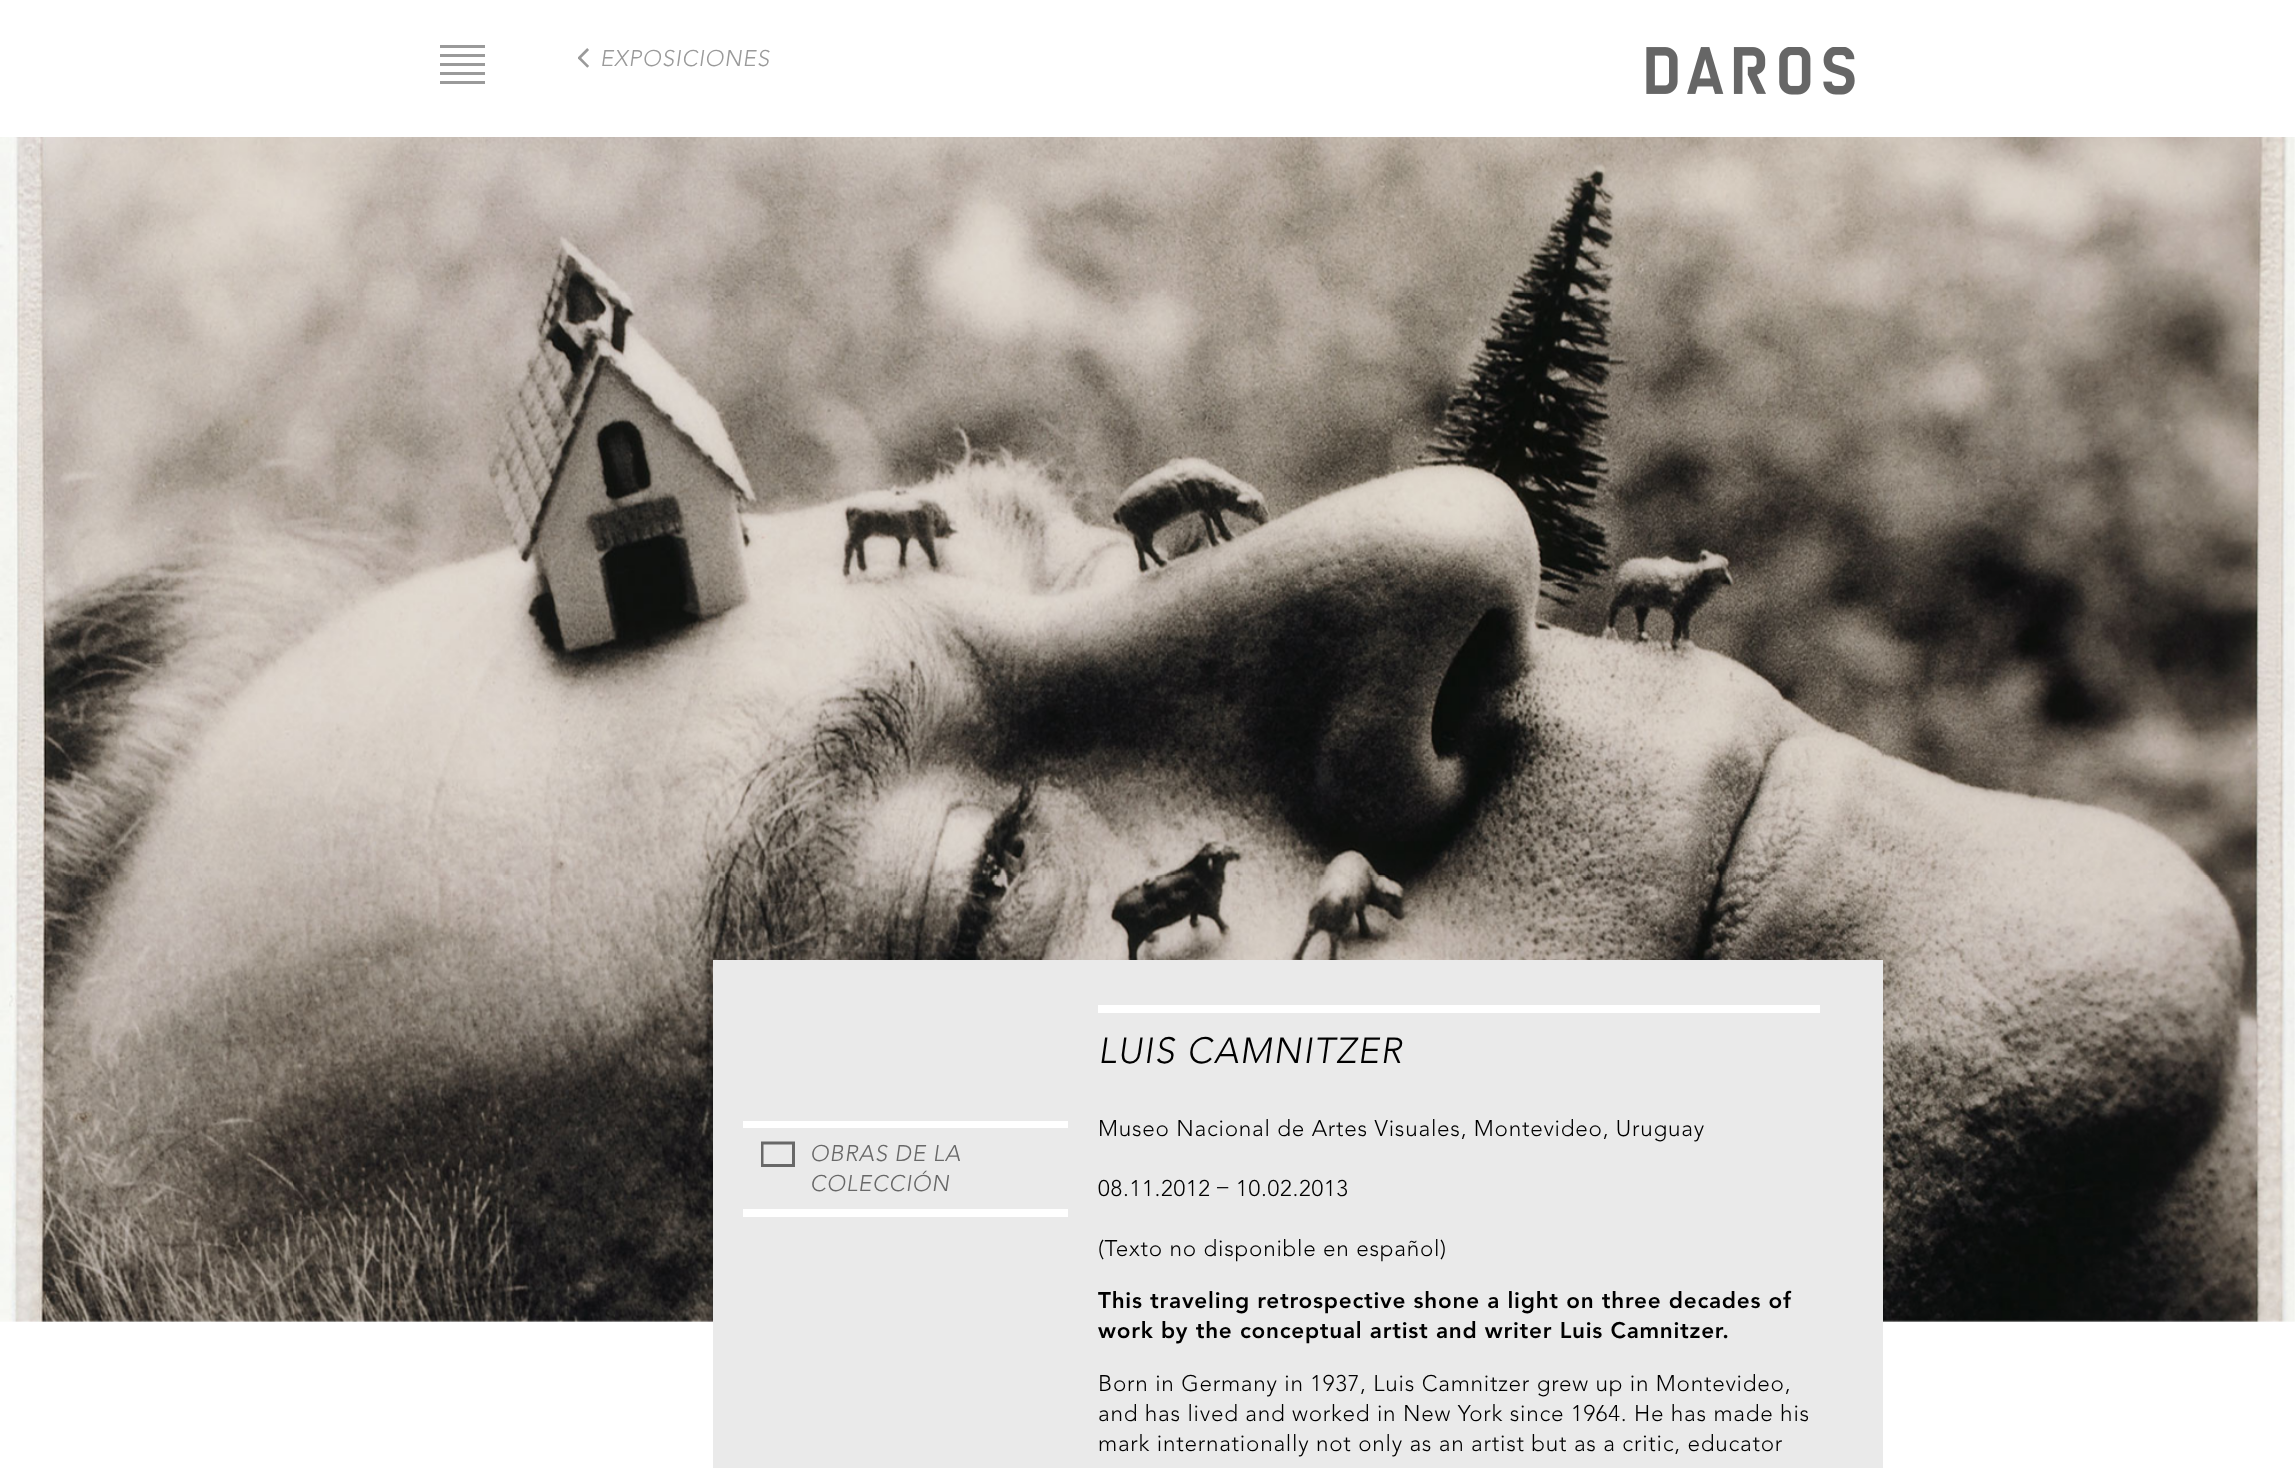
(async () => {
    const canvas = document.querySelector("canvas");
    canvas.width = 2295;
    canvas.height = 1468;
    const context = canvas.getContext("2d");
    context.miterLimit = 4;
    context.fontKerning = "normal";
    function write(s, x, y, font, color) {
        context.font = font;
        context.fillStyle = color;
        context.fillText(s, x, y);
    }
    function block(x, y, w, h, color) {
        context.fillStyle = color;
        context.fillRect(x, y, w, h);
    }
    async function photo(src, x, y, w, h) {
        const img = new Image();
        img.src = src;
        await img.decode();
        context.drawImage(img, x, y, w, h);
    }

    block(0, 0, 2295, 1468, "rgb(255, 255, 255)");
    block(440, 45, 45, 3, "rgb(154, 154, 154)");
    block(440, 54, 45, 3, "rgb(154, 154, 154)");
    block(440, 63, 45, 3, "rgb(154, 154, 154)");
    block(440, 72, 45, 3, "rgb(154, 154, 154)");
    block(440, 81, 45, 3, "rgb(154, 154, 154)");
    await photo("media/1.png", 578, 48, 11, 20);
    context.letterSpacing = "0.75px";
    write("EXPOSICIONES", 600, 66, "italic 300 22.5px Avenir", "rgb(154, 154, 154)");
    await photo("media/2.png", 1646, 47, 209, 48);
    await photo("media/3.png", 0, 137, 2295, 1185);
    block(713, 960, 1170, 508, "rgb(234, 234, 234)");
    block(1098, 1005, 722, 8, "rgb(255, 255, 255)");
    context.letterSpacing = "1.5px";
    write("LUIS CAMNITZER", 1098, 1063, "italic 300 36px Avenir", "rgb(0, 0, 0)");
    block(743, 1121, 325, 7, "rgb(255, 255, 255)");
    block(743, 1209, 325, 8, "rgb(255, 255, 255)");
    await photo("media/4.png", 761, 1141, 34, 26);
    context.letterSpacing = "0.75px";
    write("OBRAS DE LA", 810, 1161, "italic 300 22.5px Avenir", "rgb(104, 104, 104)");
    write("COLECCIÓN", 810, 1191, "italic 300 22.5px Avenir", "rgb(104, 104, 104)");
    write("Museo Nacional de Artes Visuales, Montevideo, Uruguay", 1098, 1136, "300 22.5px Avenir", "rgb(0, 0, 0)");
    write("08.11.2012", 1098, 1196, "300 22.5px Avenir", "rgb(0, 0, 0)");
    write("–", 1217, 1193, "300 22.5px Avenir", "rgb(0, 0, 0)");
    write("10.02.2013", 1236, 1196, "300 22.5px Avenir", "rgb(0, 0, 0)");
    write("(Texto no disponible en español)", 1098, 1256, "300 22.5px Avenir", "rgb(0, 0, 0)");
    write("This traveling retrospective shone a light on three decades of", 1098, 1308, "900 22.5px Avenir", "rgb(0, 0, 0)");
    write("work by the conceptual artist and writer Luis Camnitzer.", 1098, 1338, "900 22.5px Avenir", "rgb(0, 0, 0)");
    write("Born in Germany in 1937, Luis Camnitzer grew up in Montevideo,", 1098, 1391, "300 22.5px Avenir", "rgb(0, 0, 0)");
    write("and has lived and worked in New York since 1964. He has made his", 1098, 1421, "300 22.5px Avenir", "rgb(0, 0, 0)");
    write("mark internationally not only as an artist but as a critic, educator", 1098, 1451, "300 22.5px Avenir", "rgb(0, 0, 0)");
})();
